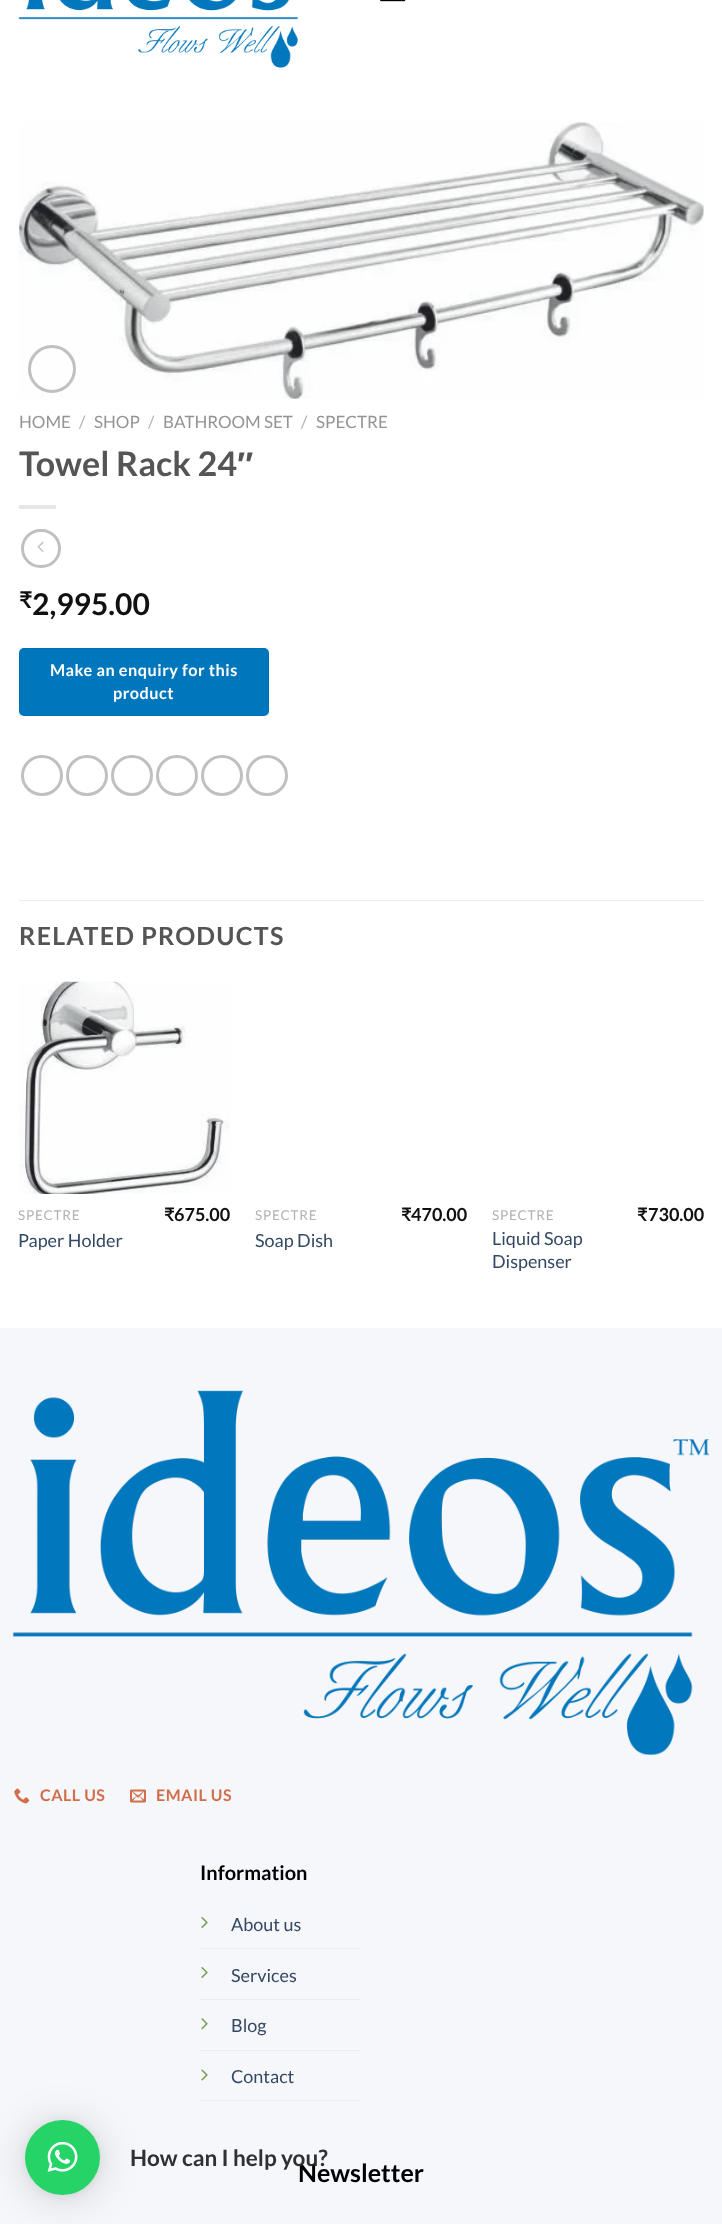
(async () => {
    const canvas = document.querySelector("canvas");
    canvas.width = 722;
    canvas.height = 2224;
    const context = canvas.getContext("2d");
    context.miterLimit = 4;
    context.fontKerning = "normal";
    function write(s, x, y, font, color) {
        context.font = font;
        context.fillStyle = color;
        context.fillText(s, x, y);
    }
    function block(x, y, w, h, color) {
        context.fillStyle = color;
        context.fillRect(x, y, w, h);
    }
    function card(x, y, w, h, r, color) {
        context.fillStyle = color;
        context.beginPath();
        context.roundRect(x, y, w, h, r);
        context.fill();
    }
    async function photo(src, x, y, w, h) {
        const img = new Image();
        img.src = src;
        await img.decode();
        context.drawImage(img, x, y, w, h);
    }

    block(0, 0, 722, 2224, "rgb(255, 255, 255)");
    await photo("media/1.png", 18, 0, 280, 68);
    await photo("media/2.png", 380, 0, 26, 2);
    await photo("media/3.png", 18, 121, 686, 278);
    context.beginPath();
    context.arc(52, 369, 22.5, 0, Math.PI * 2);
    context.strokeStyle = "rgb(192, 192, 192)";
    context.lineWidth = 3;
    context.stroke();
    write("HOME", 19, 428, "17px Lato", "rgb(148, 148, 148)");
    write("/", 79, 428, "17px Lato", "rgb(178, 178, 178)");
    write("SHOP", 94, 428, "17px Lato", "rgb(148, 148, 148)");
    write("/", 148, 428, "17px Lato", "rgb(178, 178, 178)");
    write("BATHROOM SET", 163, 428, "17px Lato", "rgb(148, 148, 148)");
    write("/", 301, 428, "17px Lato", "rgb(178, 178, 178)");
    write("SPECTRE", 316, 428, "17px Lato", "rgb(148, 148, 148)");
    write("Towel Rack 24", 19, 476, "bold 34px Lato", "rgb(85, 85, 85)");
    write("″", 237, 476, "bold 34px Liberation Sans", "rgb(85, 85, 85)");
    block(19, 505, 37, 4, "rgb(230, 230, 230)");
    context.beginPath();
    context.roundRect(22.5, 530.5, 37, 36, 18);
    context.stroke();
    await photo("media/4.png", 37, 541, 7, 11);
    write("₹", 19, 608, "bold 22.5px 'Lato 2'", "rgb(17, 17, 17)");
    write("2,995.00", 32, 615, "bold 30px Lato", "rgb(17, 17, 17)");
    card(19, 648, 250, 68, 5, "rgb(0, 119, 189)");
    context.strokeStyle = "rgba(0, 0, 0, 0.05)";
    context.lineWidth = 1;
    context.strokeRect(19.5, 648.5, 249, 67);
    context.letterSpacing = "0.5px";
    write("Make an enquiry for this", 50, 676, "bold 16.25px Lato", "rgb(255, 255, 255)");
    write("product", 113, 699, "bold 16.25px Lato", "rgb(255, 255, 255)");
    context.beginPath();
    context.roundRect(22.5, 756.5, 39, 38, 19);
    context.strokeStyle = "rgb(192, 192, 192)";
    context.lineWidth = 3;
    context.stroke();
    context.beginPath();
    context.roundRect(67.5, 756.5, 39, 38, 19);
    context.stroke();
    context.beginPath();
    context.roundRect(112.5, 756.5, 39, 38, 19);
    context.stroke();
    context.beginPath();
    context.roundRect(157.5, 756.5, 39, 38, 19);
    context.stroke();
    context.beginPath();
    context.roundRect(202.5, 756.5, 39, 38, 19);
    context.stroke();
    context.beginPath();
    context.roundRect(247.5, 756.5, 39, 38, 19);
    context.stroke();
    block(19, 900, 685, 1, "rgb(236, 236, 236)");
    context.letterSpacing = "1.25px";
    write("RELATED PRODUCTS", 19, 945, "bold 25px Lato", "rgb(85, 85, 85)");
    await photo("media/5.png", 19, 981, 211, 213);
    context.letterSpacing = "0.75px";
    write("SPECTRE", 18, 1220, "13.5px Lato", "rgb(178, 178, 178)");
    context.letterSpacing = "0px";
    write("Paper Holder", 18, 1247, "18px Lato", "rgb(51, 72, 98)");
    write("₹", 164, 1221, "bold 18px 'Lato 2'", "rgb(17, 17, 17)");
    write("675.00", 174, 1221, "bold 18px Lato", "rgb(17, 17, 17)");
    context.letterSpacing = "0.75px";
    write("SPECTRE", 255, 1220, "13.5px Lato", "rgb(178, 178, 178)");
    context.letterSpacing = "0px";
    write("Soap Dish", 255, 1247, "18px Lato", "rgb(51, 72, 98)");
    write("₹", 401, 1221, "bold 18px 'Lato 2'", "rgb(17, 17, 17)");
    write("470.00", 411, 1221, "bold 18px Lato", "rgb(17, 17, 17)");
    context.letterSpacing = "0.75px";
    write("SPECTRE", 492, 1220, "13.5px Lato", "rgb(178, 178, 178)");
    context.letterSpacing = "0px";
    write("Liquid Soap", 492, 1245, "18px Lato", "rgb(51, 72, 98)");
    write("Dispenser", 492, 1268, "18px Lato", "rgb(51, 72, 98)");
    write("₹", 637, 1221, "bold 18px 'Lato 2'", "rgb(17, 17, 17)");
    write("730.00", 648, 1221, "bold 18px Lato", "rgb(17, 17, 17)");
    block(0, 1328, 722, 896, "rgb(245, 247, 251)");
    await photo("media/6.png", 12, 1390, 698, 366);
    await photo("media/7.png", 14, 1788, 16, 16);
    context.letterSpacing = "0.5px";
    write("CALL US", 40, 1801, "bold 16px Lato", "rgb(210, 110, 75)");
    await photo("media/8.png", 130, 1789, 16, 14);
    write("EMAIL US", 156, 1801, "bold 16px Lato", "rgb(210, 110, 75)");
    context.letterSpacing = "0px";
    write("Information", 200, 1880, "bold 20px Lato", "rgb(0, 0, 0)");
    block(200, 1948, 161, 1, "rgb(236, 236, 236)");
    await photo("media/9.png", 201, 1917, 7, 11);
    write("About us", 231, 1931, "18px Lato", "rgb(51, 72, 98)");
    block(200, 1999, 161, 1, "rgb(236, 236, 236)");
    await photo("media/9.png", 201, 1967, 7, 11);
    write("Services", 231, 1982, "18px Lato", "rgb(51, 72, 98)");
    block(200, 2050, 161, 1, "rgb(236, 236, 236)");
    await photo("media/10.png", 201, 2018, 7, 12);
    write("Blog", 231, 2032, "18px Lato", "rgb(51, 72, 98)");
    block(200, 2100, 161, 1, "rgb(236, 236, 236)");
    await photo("media/11.png", 201, 2069, 7, 12);
    write("Contact", 231, 2083, "18px Lato", "rgb(51, 72, 98)");
    write("Newsletter", 298, 2182, "bold 25px Lato", "rgb(0, 0, 0)");
    context.fillStyle = "rgba(0, 0, 0, 0.16)";
    context.filter = "blur(20px)";
    context.beginPath();
    context.roundRect(25, 2123, 75, 75, 37.5);
    context.fill();
    context.filter = "none";
    context.fillStyle = "rgba(0, 0, 0, 0.06)";
    context.filter = "blur(4px)";
    context.beginPath();
    context.roundRect(25, 2121, 75, 75, 37.5);
    context.fill();
    context.filter = "none";
    context.fillStyle = "rgb(37, 211, 102)";
    context.beginPath();
    context.arc(62.5, 2157.5, 37.5, 0, Math.PI * 2);
    context.fill();
    await photo("media/12.png", 47, 2141, 31, 31);
    write("How can I help you?", 130, 2166, "bold 22.5px Lato", "rgb(48, 48, 48)");
})();
